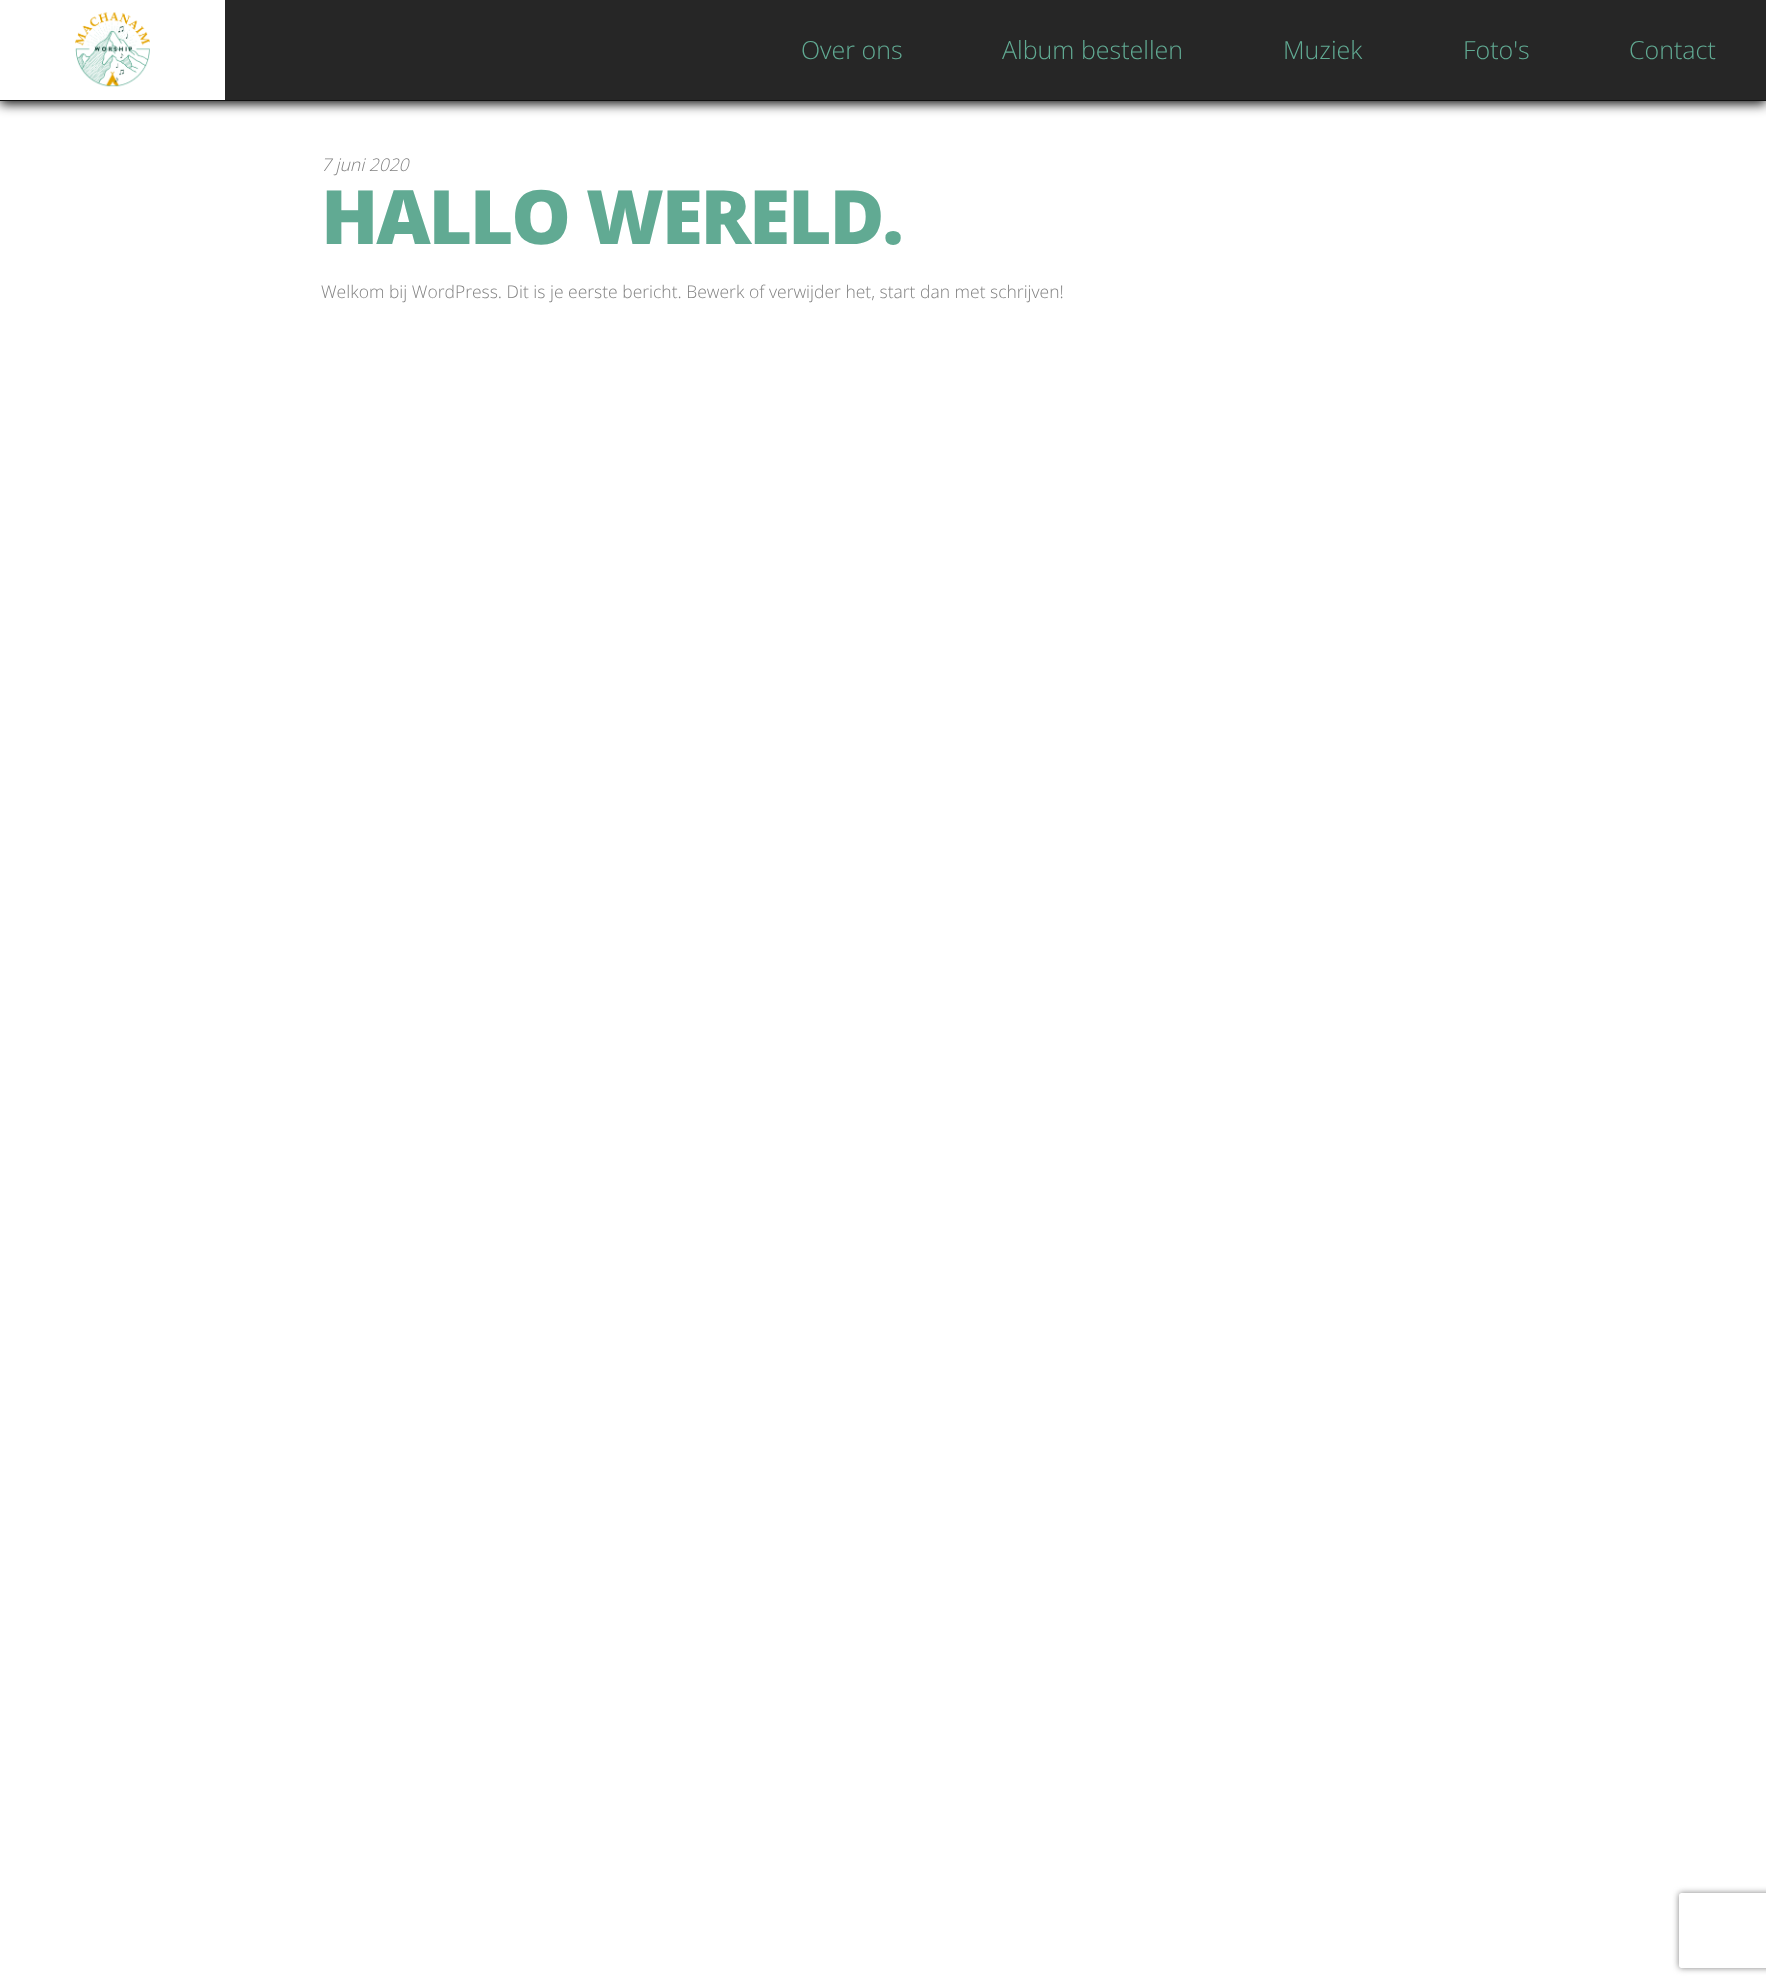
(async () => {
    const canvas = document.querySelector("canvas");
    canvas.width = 1766;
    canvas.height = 1985;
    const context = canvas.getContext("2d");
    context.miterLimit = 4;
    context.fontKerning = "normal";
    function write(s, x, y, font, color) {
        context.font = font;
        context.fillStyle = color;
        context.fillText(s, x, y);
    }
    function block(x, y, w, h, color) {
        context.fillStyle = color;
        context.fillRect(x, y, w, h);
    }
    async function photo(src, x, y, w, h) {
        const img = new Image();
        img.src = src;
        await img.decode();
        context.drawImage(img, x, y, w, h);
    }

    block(0, 0, 1766, 1985, "rgb(255, 255, 255)");
    context.fillStyle = "rgb(17, 17, 17)";
    context.filter = "blur(6px)";
    context.beginPath();
    context.rect(0, 3, 1766, 101);
    context.fill();
    context.filter = "none";
    block(225, 0, 1541, 100, "rgb(38, 38, 38)");
    block(0, 100, 1766, 1, "rgb(17, 17, 17)");
    block(0, 0, 225, 100, "rgb(255, 255, 255)");
    await photo("media/1.png", 75, 12, 75, 75);
    write("Over ons", 801, 59, "300 25px Open Sans", "rgb(97, 170, 147)");
    write("Album bestellen", 1002, 59, "300 25px Open Sans", "rgb(97, 170, 147)");
    write("Muziek", 1283, 59, "300 25px Open Sans", "rgb(97, 170, 147)");
    write("Foto's", 1463, 59, "300 25px Open Sans", "rgb(97, 170, 147)");
    write("Contact", 1629, 59, "300 25px Open Sans", "rgb(97, 170, 147)");
    write("7 juni 2020", 321, 171, "italic 300 17.5px Open Sans", "rgb(131, 131, 131)");
    context.letterSpacing = "-2.25px";
    write("HALLO WERELD.", 321, 244, "800 75px Open Sans", "rgb(97, 170, 147)");
    context.letterSpacing = "0px";
    write("Welkom bij WordPress. Dit is je eerste bericht. Bewerk of verwijder het, start dan met schrijven!", 321, 298, "300 17.5px Open Sans", "rgb(131, 131, 131)");
    context.save();
    context.beginPath();
    context.moveTo(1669, 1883);
    context.lineTo(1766, 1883);
    context.lineTo(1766, 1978);
    context.lineTo(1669, 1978);
    context.closePath();
    context.moveTo(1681.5, 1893);
    context.lineTo(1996.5, 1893);
    context.bezierCurveTo(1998, 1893, 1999, 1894, 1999, 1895.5);
    context.lineTo(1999, 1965.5);
    context.bezierCurveTo(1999, 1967, 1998, 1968, 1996.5, 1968);
    context.lineTo(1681.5, 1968);
    context.bezierCurveTo(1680, 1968, 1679, 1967, 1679, 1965.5);
    context.lineTo(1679, 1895.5);
    context.bezierCurveTo(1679, 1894, 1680, 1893, 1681.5, 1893);
    context.closePath();
    context.clip("evenodd");
    context.fillStyle = "rgb(128, 128, 128)";
    context.filter = "blur(3px)";
    context.beginPath();
    context.roundRect(1679, 1893, 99, 75, 2.5);
    context.fill();
    context.filter = "none";
    context.restore();
})();
